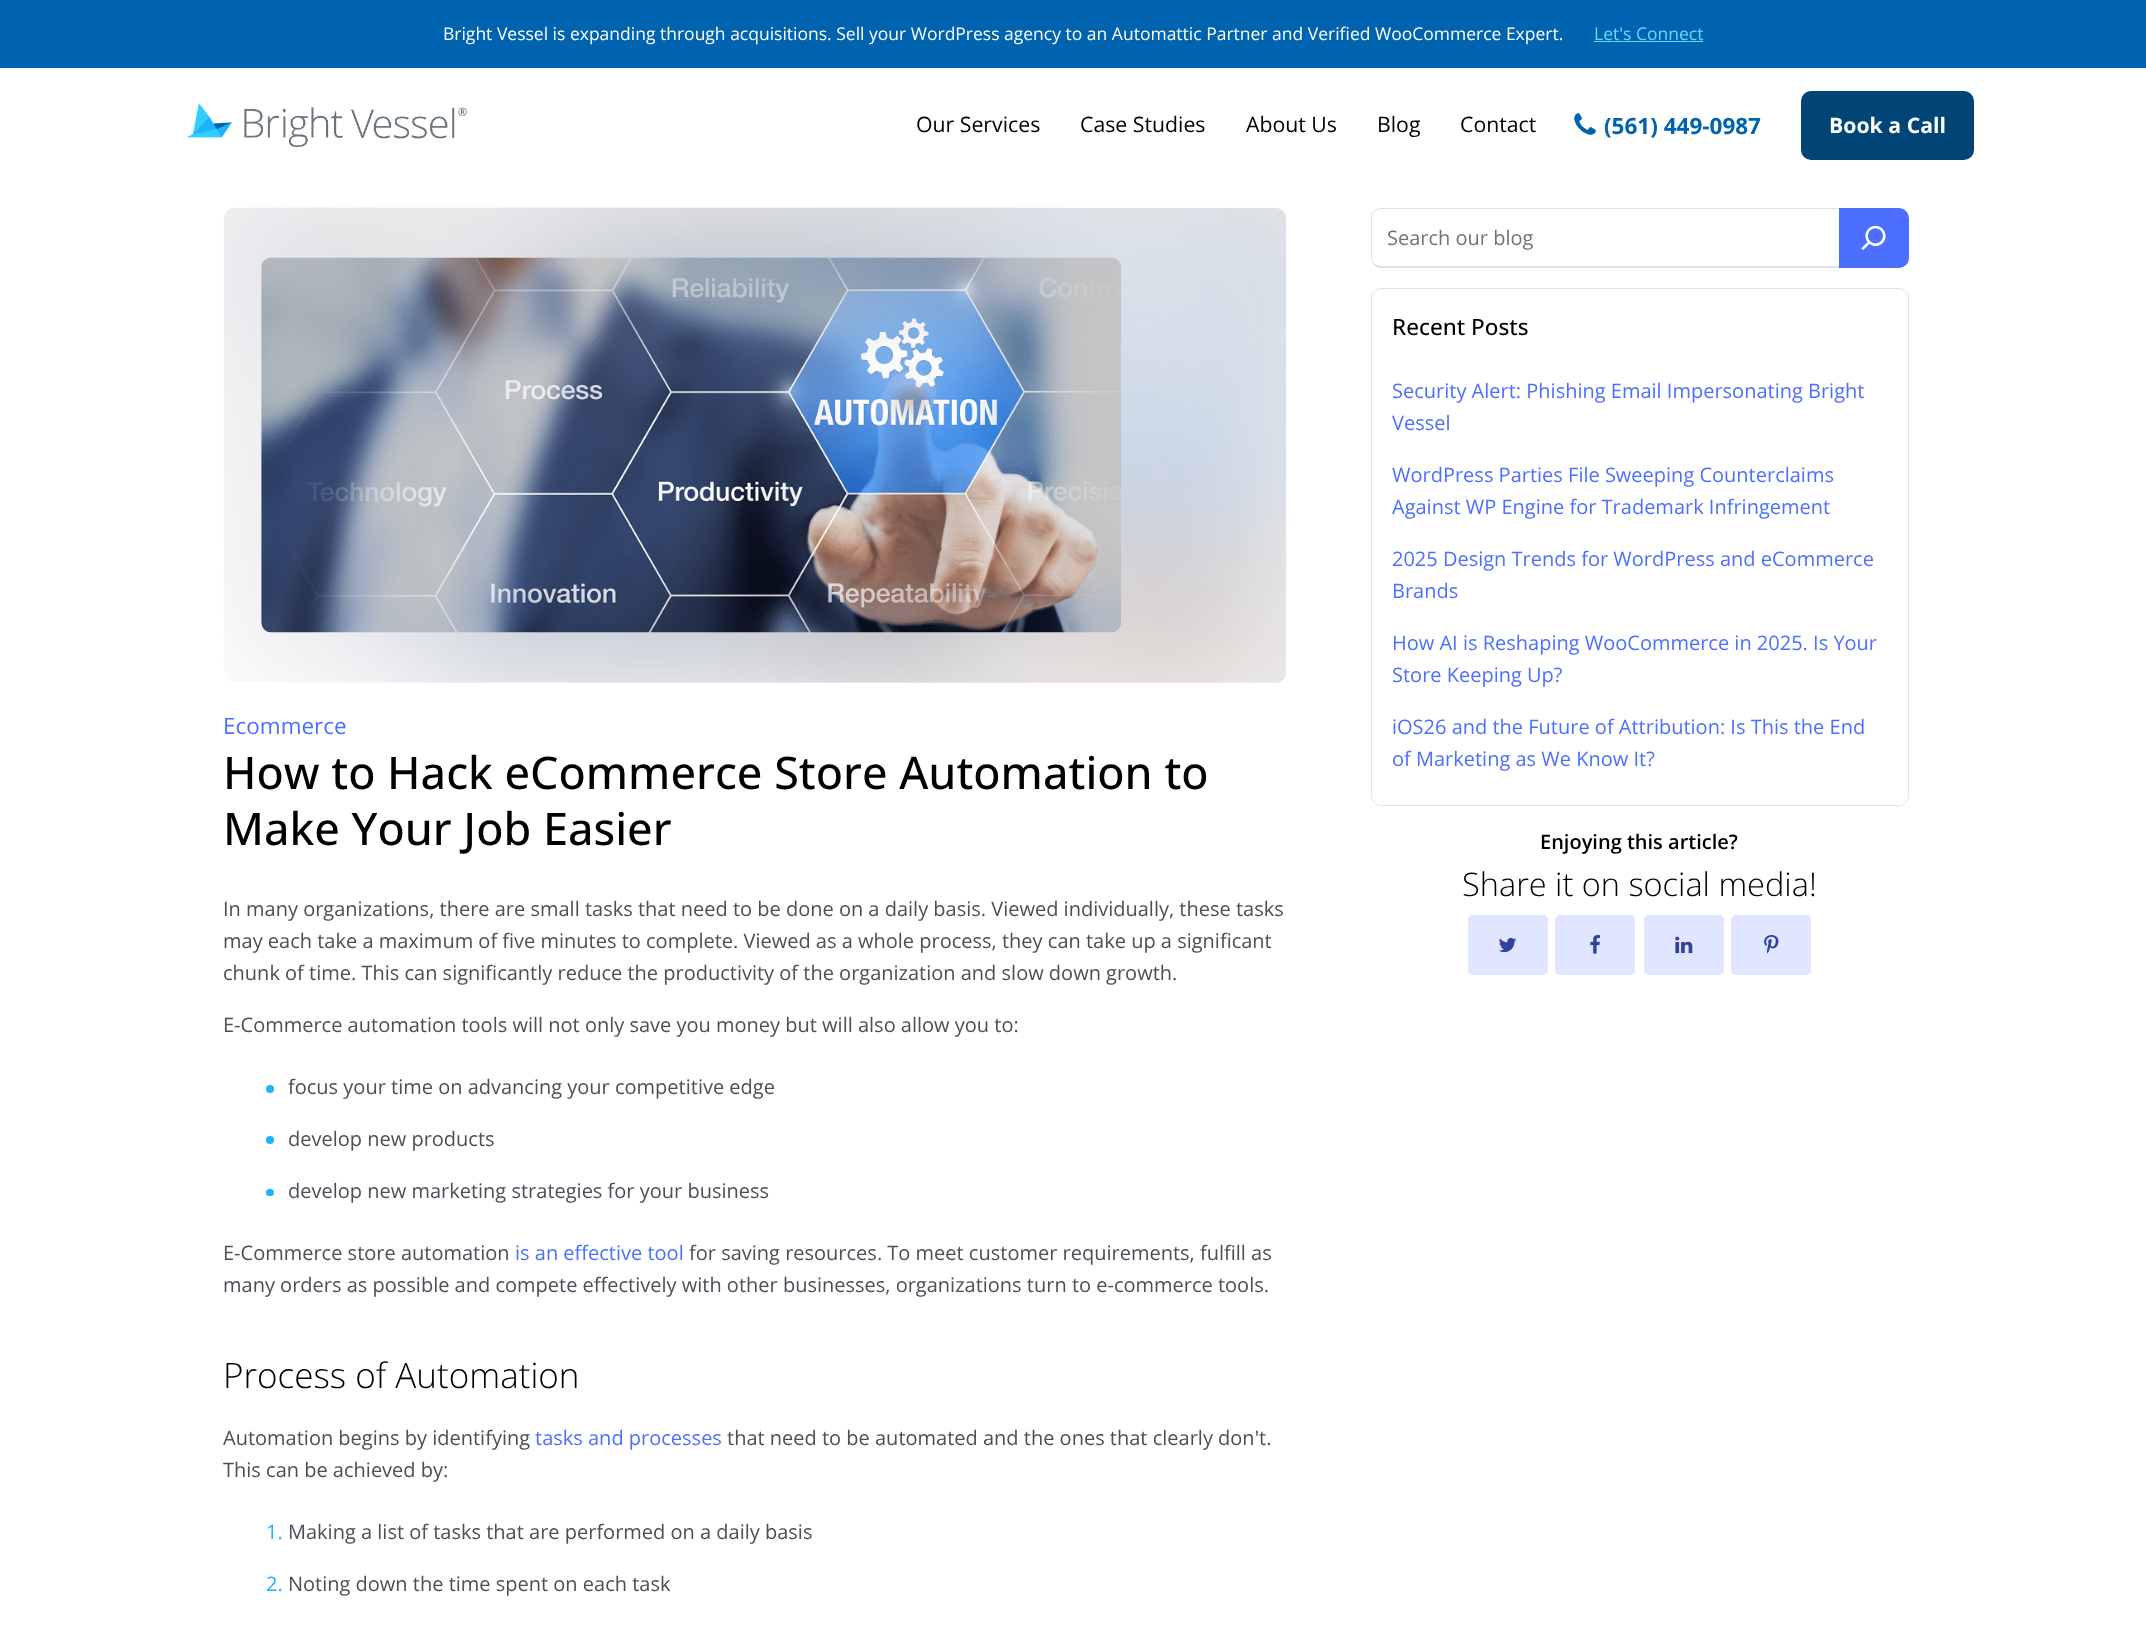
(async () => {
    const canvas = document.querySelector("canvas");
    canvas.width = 2146;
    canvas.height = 1626;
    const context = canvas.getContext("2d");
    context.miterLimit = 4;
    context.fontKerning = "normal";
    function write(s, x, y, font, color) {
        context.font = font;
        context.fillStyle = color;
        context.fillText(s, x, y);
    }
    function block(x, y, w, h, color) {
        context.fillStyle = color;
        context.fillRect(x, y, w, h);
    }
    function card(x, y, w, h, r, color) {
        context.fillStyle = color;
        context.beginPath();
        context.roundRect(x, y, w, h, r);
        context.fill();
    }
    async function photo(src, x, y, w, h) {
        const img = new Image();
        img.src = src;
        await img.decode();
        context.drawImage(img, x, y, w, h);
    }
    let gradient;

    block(0, 0, 2146, 1626, "rgb(255, 255, 255)");
    block(0, 0, 2146, 68, "rgb(0, 99, 175)");
    write("Bright Vessel is expanding through acquisitions. Sell your WordPress agency to an Automattic Partner and Verified WooCommerce Expert.", 443, 40, "17.5px Open Sans", "rgb(255, 255, 255)");
    write("Let's Connect", 1594, 40, "17.5px Open Sans", "rgb(104, 216, 255)");
    block(1594, 41, 109, 1, "rgb(104, 216, 255)");
    await photo("media/1.png", 187, 103, 280, 44);
    write("Our Services", 916, 132, "21.25px Open Sans", "rgb(0, 0, 0)");
    write("Case Studies", 1080, 132, "21.25px Open Sans", "rgb(0, 0, 0)");
    write("About Us", 1246, 132, "21.25px Open Sans", "rgb(0, 0, 0)");
    write("Blog", 1377, 132, "21.25px Open Sans", "rgb(0, 0, 0)");
    write("Contact", 1460, 132, "21.25px Open Sans", "rgb(0, 0, 0)");
    await photo("media/2.png", 1574, 113, 22, 22);
    write("(561) 449-0987", 1604, 134, "bold 22.5px Open Sans", "rgb(0, 99, 175)");
    context.fillStyle = "rgb(0, 69, 118)";
    context.beginPath();
    context.roundRect(1802.5, 92.5, 170, 66, 8.5);
    context.fill();
    context.strokeStyle = "rgb(0, 69, 118)";
    context.lineWidth = 3;
    context.stroke();
    write("Book a Call", 1829, 133, "bold 21.25px Open Sans", "rgb(255, 255, 255)");
    context.fillStyle = "rgb(222, 226, 230)";
    context.beginPath();
    context.moveTo(1381, 208);
    context.lineTo(1839, 208);
    context.lineTo(1839, 268);
    context.lineTo(1381, 268);
    context.bezierCurveTo(1376, 268, 1371, 263, 1371, 258);
    context.lineTo(1371, 218);
    context.bezierCurveTo(1371, 212, 1376, 208, 1381, 208);
    context.closePath();
    context.moveTo(1381, 209);
    context.lineTo(1839, 209);
    context.lineTo(1839, 266);
    context.lineTo(1381, 266);
    context.bezierCurveTo(1376, 266, 1372, 262, 1372, 258);
    context.lineTo(1372, 218);
    context.bezierCurveTo(1372, 213, 1376, 209, 1381, 209);
    context.closePath();
    context.fill("evenodd");
    write("Search our blog", 1387, 245, "20px Open Sans", "rgb(108, 117, 125)");
    context.fillStyle = "rgb(76, 111, 255)";
    context.beginPath();
    context.roundRect(1839, 208, 70, 60, [0, 10, 10, 0]);
    context.fill();
    await photo("media/3.png", 1861, 225, 25, 26);
    context.beginPath();
    context.roundRect(1371.5, 288.5, 537, 517, 9.5);
    context.strokeStyle = "rgb(222, 226, 230)";
    context.lineWidth = 1;
    context.stroke();
    write("Recent Posts", 1392, 335, "500 22.5px Open Sans", "rgb(0, 0, 0)");
    write("Security Alert: Phishing Email Impersonating Bright", 1392, 398, "20px Open Sans", "rgb(76, 111, 255)");
    write("Vessel", 1392, 430, "20px Open Sans", "rgb(76, 111, 255)");
    write("WordPress Parties File Sweeping Counterclaims", 1392, 482, "20px Open Sans", "rgb(76, 111, 255)");
    write("Against WP Engine for Trademark Infringement", 1392, 514, "20px Open Sans", "rgb(76, 111, 255)");
    write("2025 Design Trends for WordPress and eCommerce", 1392, 566, "20px Open Sans", "rgb(76, 111, 255)");
    write("Brands", 1392, 598, "20px Open Sans", "rgb(76, 111, 255)");
    write("How AI is Reshaping WooCommerce in 2025. Is Your", 1392, 650, "20px Open Sans", "rgb(76, 111, 255)");
    write("Store Keeping Up?", 1392, 682, "20px Open Sans", "rgb(76, 111, 255)");
    write("iOS26 and the Future of Attribution: Is This the End", 1392, 734, "20px Open Sans", "rgb(76, 111, 255)");
    write("of Marketing as We Know It?", 1392, 766, "20px Open Sans", "rgb(76, 111, 255)");
    write("Enjoying this article?", 1540, 849, "600 20px Open Sans", "rgb(0, 0, 0)");
    write("Share it on social media!", 1462, 896, "300 32.5px Open Sans", "rgb(0, 0, 0)");
    card(1468, 915, 80, 60, 5, "rgb(219, 226, 255)");
    card(1468, 915, 80, 60, 5, "rgba(255, 255, 255, 0.15)");
    await photo("media/4.png", 1499, 937, 18, 16);
    card(1555, 915, 80, 60, 5, "rgb(219, 226, 255)");
    card(1555, 915, 80, 60, 5, "rgba(255, 255, 255, 0.15)");
    await photo("media/5.png", 1590, 935, 10, 19);
    card(1644, 915, 80, 60, 5, "rgb(219, 226, 255)");
    card(1644, 915, 80, 60, 5, "rgba(255, 255, 255, 0.15)");
    await photo("media/6.png", 1675, 936, 18, 18);
    card(1731, 915, 80, 60, 5, "rgb(219, 226, 255)");
    card(1731, 915, 80, 60, 5, "rgba(255, 255, 255, 0.15)");
    await photo("media/7.png", 1764, 935, 15, 19);
    gradient = context.createLinearGradient(371, 829, 1139, 61);
    gradient.addColorStop(0, "rgb(255, 255, 255)");
    gradient.addColorStop(1, "rgb(230, 230, 230)");
    context.fillStyle = gradient;
    context.beginPath();
    context.roundRect(224, 208, 1062, 475, 10);
    context.fill();
    await photo("media/8.png", 223, 207, 1064, 476);
    await photo("media/9.png", 261, 257, 860, 376);
    write("Ecommerce", 223, 734, "22.5px Open Sans", "rgb(76, 111, 255)");
    write("How to Hack eCommerce Store Automation to", 223, 789, "500 45px Open Sans", "rgb(0, 0, 0)");
    write("Make Your Job Easier", 223, 845, "500 45px Open Sans", "rgb(0, 0, 0)");
    write("In many organizations, there are small tasks that need to be done on a daily basis. Viewed individually, these tasks", 223, 916, "20px Open Sans", "rgb(73, 80, 87)");
    write("may each take a maximum of five minutes to complete. Viewed as a whole process, they can take up a significant", 223, 948, "20px Open Sans", "rgb(73, 80, 87)");
    write("chunk of time. This can significantly reduce the productivity of the organization and slow down growth.", 223, 980, "20px Open Sans", "rgb(73, 80, 87)");
    write("E-Commerce automation tools will not only save you money but will also allow you to:", 223, 1032, "20px Open Sans", "rgb(73, 80, 87)");
    context.fillStyle = "rgb(26, 179, 255)";
    context.beginPath();
    context.arc(270, 1089, 4, 0, Math.PI * 2);
    context.fill();
    write("focus your time on advancing your competitive edge", 288, 1094, "20px Open Sans", "rgb(73, 80, 87)");
    context.fillStyle = "rgb(26, 179, 255)";
    context.beginPath();
    context.arc(270, 1140, 4, 0, Math.PI * 2);
    context.fill();
    write("develop new products", 288, 1146, "20px Open Sans", "rgb(73, 80, 87)");
    card(266, 1189, 8, 7, 3.5, "rgb(26, 179, 255)");
    write("develop new marketing strategies for your business", 288, 1198, "20px Open Sans", "rgb(73, 80, 87)");
    write("E-Commerce store automation", 223, 1260, "20px Open Sans", "rgb(73, 80, 87)");
    write("is an effective tool", 515, 1260, "20px Open Sans", "rgb(76, 111, 255)");
    write("for saving resources. To meet customer requirements, fulfill as", 689, 1260, "20px Open Sans", "rgb(73, 80, 87)");
    write("many orders as possible and compete effectively with other businesses, organizations turn to e-commerce tools.", 223, 1292, "20px Open Sans", "rgb(73, 80, 87)");
    write("Process of Automation", 223, 1388, "300 35px Open Sans", "rgb(0, 0, 0)");
    write("Automation begins by identifying", 223, 1445, "20px Open Sans", "rgb(73, 80, 87)");
    write("tasks and processes", 535, 1445, "20px Open Sans", "rgb(76, 111, 255)");
    write("that need to be automated and the ones that clearly don't.", 727, 1445, "20px Open Sans", "rgb(73, 80, 87)");
    write("This can be achieved by:", 223, 1477, "20px Open Sans", "rgb(73, 80, 87)");
    write("1.", 266, 1539, "20px Open Sans", "rgb(26, 179, 255)");
    write("Making a list of tasks that are performed on a daily basis", 288, 1539, "20px Open Sans", "rgb(73, 80, 87)");
    write("2.", 266, 1591, "20px Open Sans", "rgb(26, 179, 255)");
    write("Noting down the time spent on each task", 288, 1591, "20px Open Sans", "rgb(73, 80, 87)");
})();
